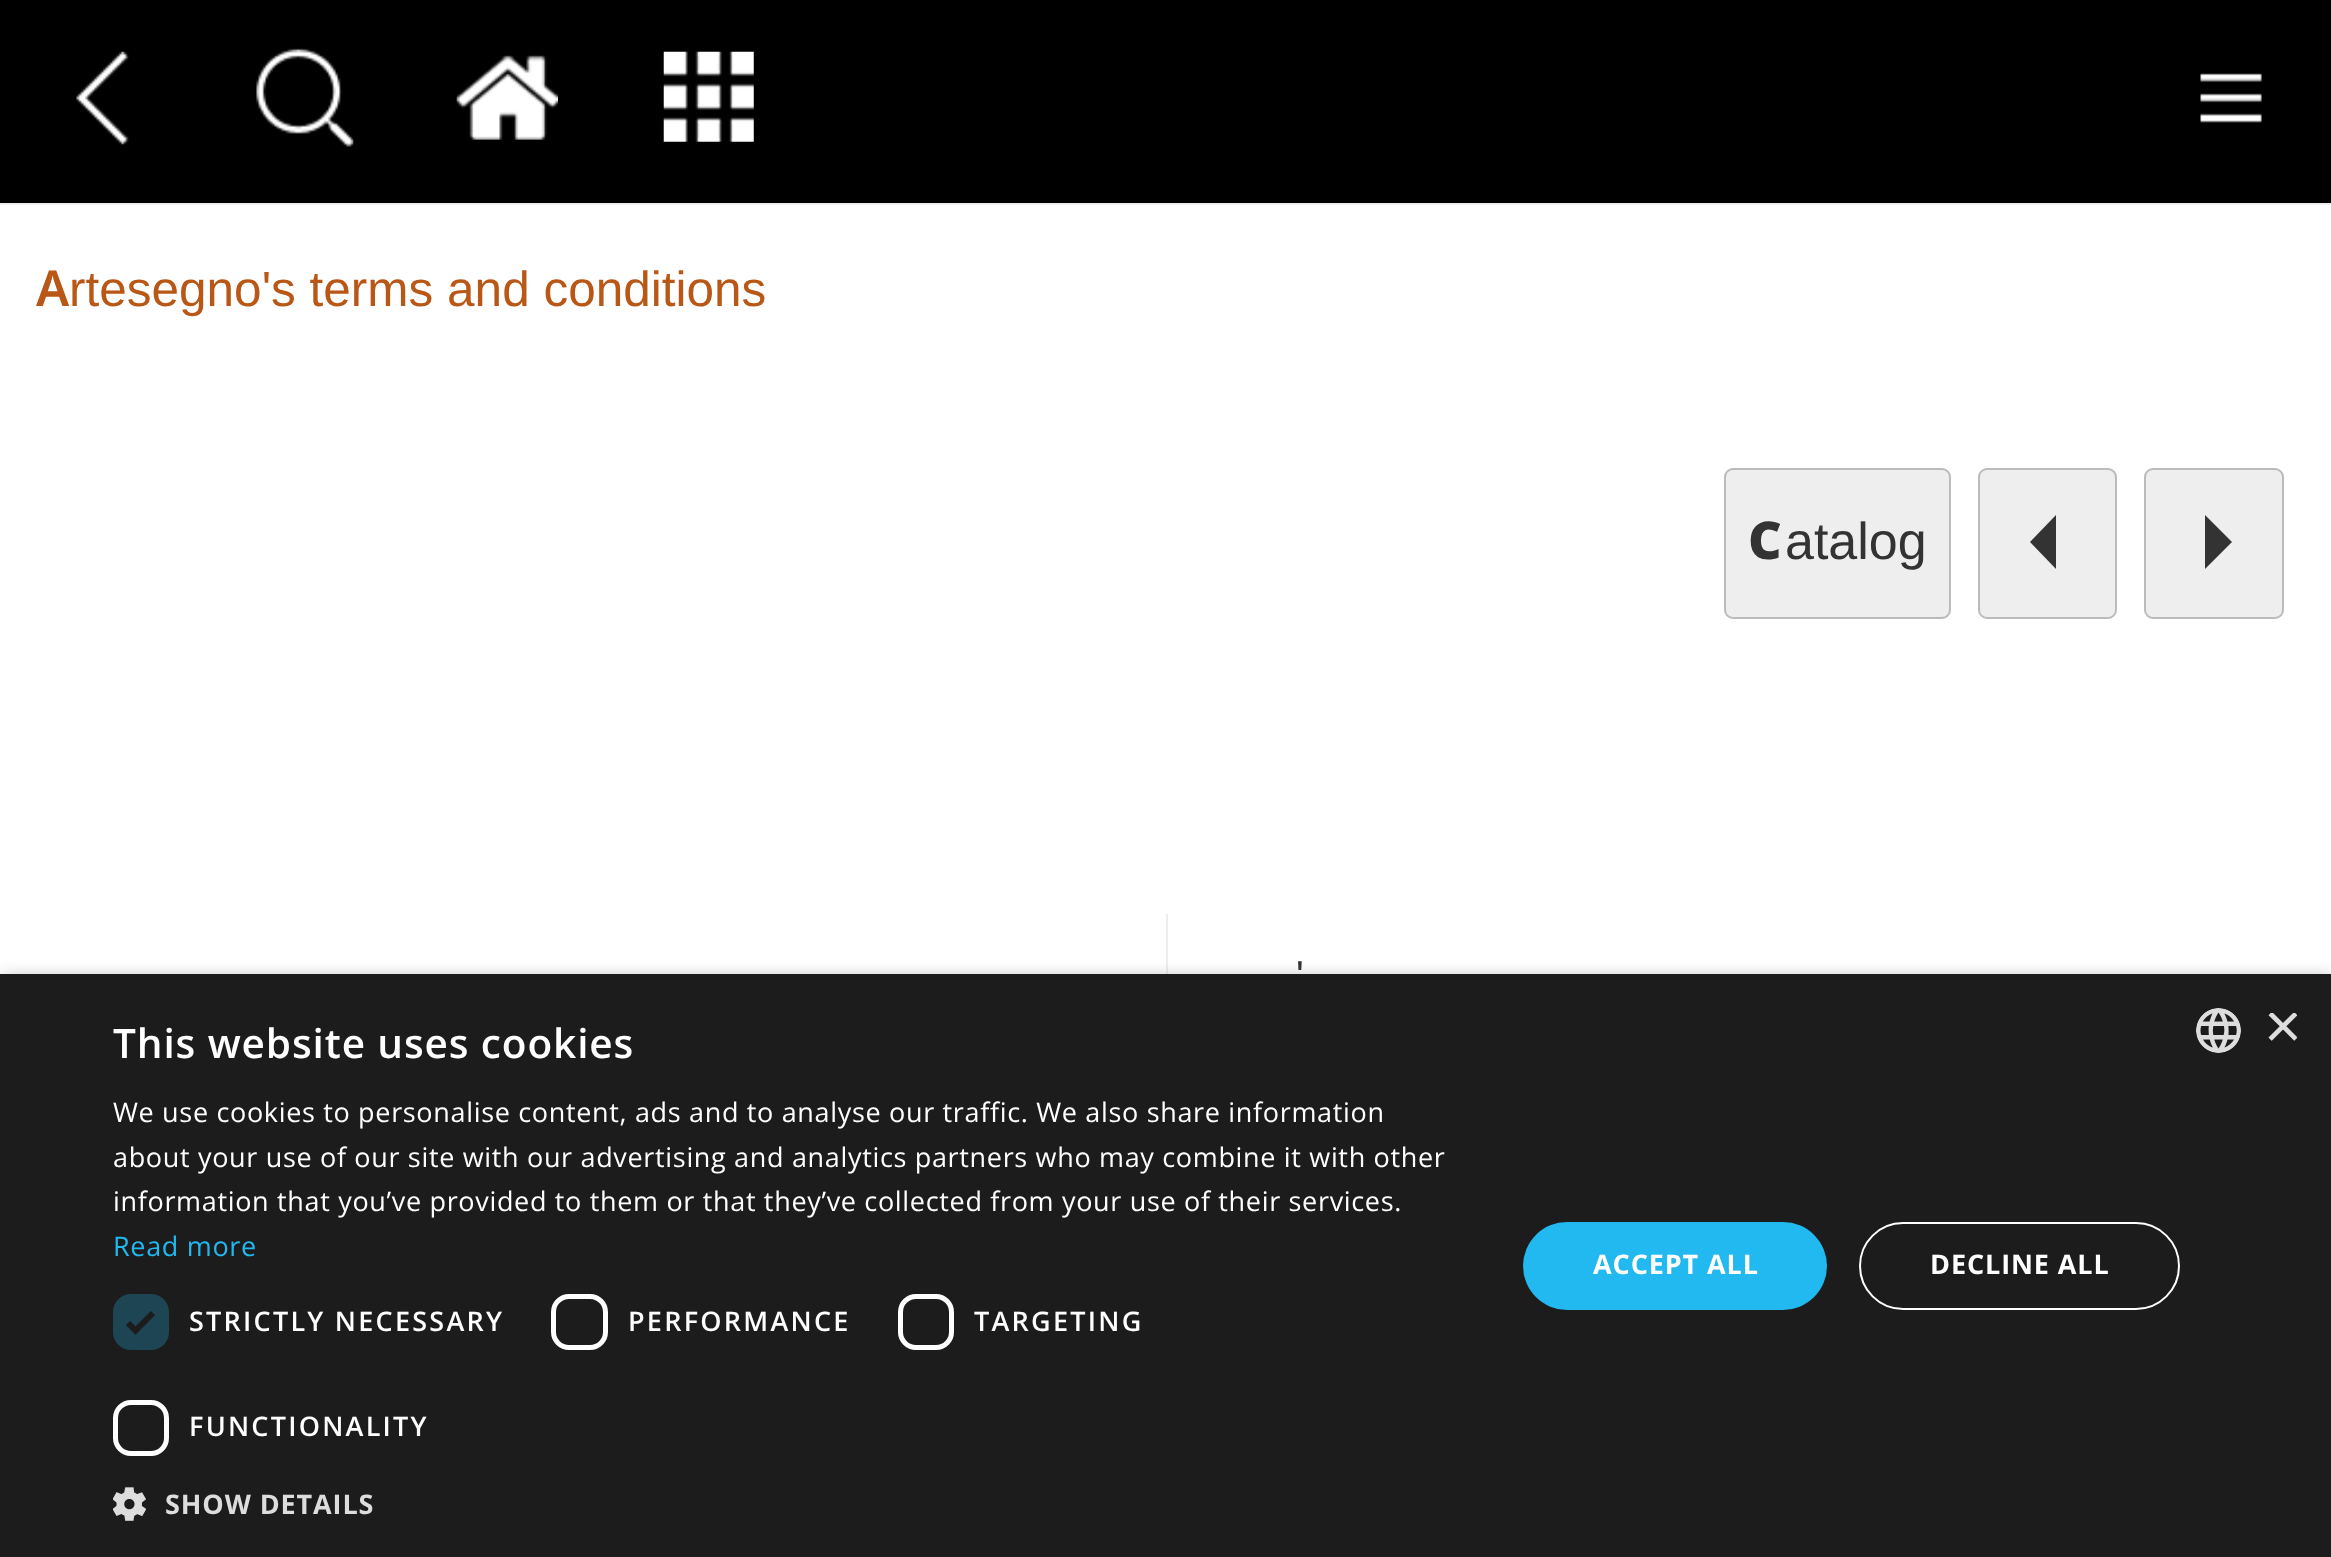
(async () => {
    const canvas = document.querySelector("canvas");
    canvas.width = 2331;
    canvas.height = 1557;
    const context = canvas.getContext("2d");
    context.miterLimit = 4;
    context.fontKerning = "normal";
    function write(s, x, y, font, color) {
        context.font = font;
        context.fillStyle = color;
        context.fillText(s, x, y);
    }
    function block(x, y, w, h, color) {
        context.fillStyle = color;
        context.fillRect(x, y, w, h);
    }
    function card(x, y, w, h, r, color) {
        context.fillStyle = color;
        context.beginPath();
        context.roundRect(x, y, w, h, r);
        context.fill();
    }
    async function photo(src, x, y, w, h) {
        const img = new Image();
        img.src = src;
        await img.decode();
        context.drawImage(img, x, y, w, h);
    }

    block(0, 0, 2331, 1557, "rgb(255, 255, 255)");
    block(0, 0, 2331, 203, "rgb(0, 0, 0)");
    block(0, 203, 2331, 2, "rgb(238, 238, 238)");
    await photo("media/1.png", 76, 51, 53, 94);
    await photo("media/2.png", 256, 48, 98, 99);
    await photo("media/3.png", 456, 55, 102, 85);
    await photo("media/4.png", 663, 51, 91, 91);
    await photo("media/5.png", 2200, 73, 62, 50);
    write("A", 36, 306, "600 49.5px Noto Sans", "rgb(185, 87, 23)");
    write("rtesegno's terms and conditions", 69, 306, "49.5px Liberation Sans", "rgb(185, 87, 23)");
    context.fillStyle = "rgb(238, 238, 238)";
    context.beginPath();
    context.roundRect(1725, 469, 225, 149, 8);
    context.fill();
    context.strokeStyle = "rgb(187, 187, 187)";
    context.lineWidth = 2;
    context.stroke();
    write("C", 1748, 559, "900 52px Noto Sans", "rgb(51, 51, 51)");
    write("atalog", 1785, 559, "52px Liberation Sans", "rgb(51, 51, 51)");
    context.fillStyle = "rgb(238, 238, 238)";
    context.beginPath();
    context.roundRect(1979, 469, 137, 149, 8);
    context.fill();
    context.stroke();
    context.fillStyle = "rgb(51, 51, 51)";
    context.beginPath();
    context.moveTo(2056, 515);
    context.lineTo(2056, 569);
    context.lineTo(2030, 542);
    context.closePath();
    context.fill();
    context.fillStyle = "rgb(238, 238, 238)";
    context.beginPath();
    context.roundRect(2145, 469, 138, 149, 8);
    context.fill();
    context.stroke();
    context.fillStyle = "rgb(51, 51, 51)";
    context.beginPath();
    context.moveTo(2205, 569);
    context.lineTo(2205, 515);
    context.lineTo(2232, 542);
    context.closePath();
    context.fill();
    block(1166, 914, 2, 60, "rgb(238, 238, 238)");
    write("'", 1296, 989, "40.5px Liberation Sans", "rgb(51, 51, 51)");
    context.fillStyle = "rgba(0, 0, 0, 0.35)";
    context.filter = "blur(9px)";
    context.beginPath();
    context.rect(2, 979, 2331, 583);
    context.fill();
    context.filter = "none";
    block(0, 974, 2331, 583, "rgb(28, 28, 28)");
    context.letterSpacing = "0.9px";
    write("This website uses cookies", 113, 1058, "600 40.5px Open Sans", "rgb(255, 255, 255)");
    context.letterSpacing = "0.67px";
    write("We use cookies to personalise content, ads and to analyse our traffic. We also share information", 113, 1122, "27px Open Sans", "rgb(255, 255, 255)");
    write("about your use of our site with our advertising and analytics partners who may combine it with other", 113, 1167, "27px Open Sans", "rgb(255, 255, 255)");
    write("information that you’ve provided to them or that they’ve collected from your use of their services.", 113, 1211, "27px Open Sans", "rgb(255, 255, 255)");
    write("Read more", 113, 1256, "27px Open Sans", "rgb(34, 184, 240)");
    card(113, 1294, 56, 56, 18, "rgb(30, 69, 83)");
    context.beginPath();
    context.moveTo(128, 1323);
    context.lineTo(135.5, 1330.5);
    context.lineTo(153, 1313);
    context.strokeStyle = "rgb(28, 28, 28)";
    context.lineWidth = 5.9;
    context.stroke();
    context.letterSpacing = "2.25px";
    write("STRICTLY NECESSARY", 189, 1331, "600 27px Open Sans", "rgb(255, 255, 255)");
    context.beginPath();
    context.roundRect(553.5, 1296.5, 52, 51, 15.5);
    context.strokeStyle = "rgb(255, 255, 255)";
    context.lineWidth = 5;
    context.stroke();
    write("PERFORMANCE", 628, 1331, "600 27px Open Sans", "rgb(255, 255, 255)");
    context.beginPath();
    context.roundRect(900.5, 1296.5, 51, 51, 15.5);
    context.stroke();
    write("TARGETING", 974, 1331, "600 27px Open Sans", "rgb(255, 255, 255)");
    context.beginPath();
    context.roundRect(115.5, 1402.5, 51, 51, 15.5);
    context.stroke();
    write("FUNCTIONALITY", 189, 1436, "600 27px Open Sans", "rgb(255, 255, 255)");
    await photo("media/6.png", 113, 1487, 33, 34);
    context.letterSpacing = "0.9px";
    write("SHOW DETAILS", 165, 1514, "bold 27px Open Sans", "rgb(221, 221, 221)");
    card(1523, 1222, 304, 88, 44, "rgb(34, 184, 240)");
    write("ACCEPT ALL", 1593, 1274, "bold 27px Open Sans", "rgb(255, 255, 255)");
    context.beginPath();
    context.roundRect(1860, 1223, 319, 86, 43);
    context.lineWidth = 2;
    context.stroke();
    write("DECLINE ALL", 1930, 1274, "bold 27px Open Sans", "rgb(255, 255, 255)");
    await photo("media/7.png", 2196, 1008, 45, 45);
    context.save();
    context.beginPath();
    context.rect(2264, 1013, 33, 33);
    context.clip();
    context.letterSpacing = "0px";
    write("×", 2264, 1048, "65px Liberation Sans", "rgb(221, 221, 221)");
    context.restore();
})();
